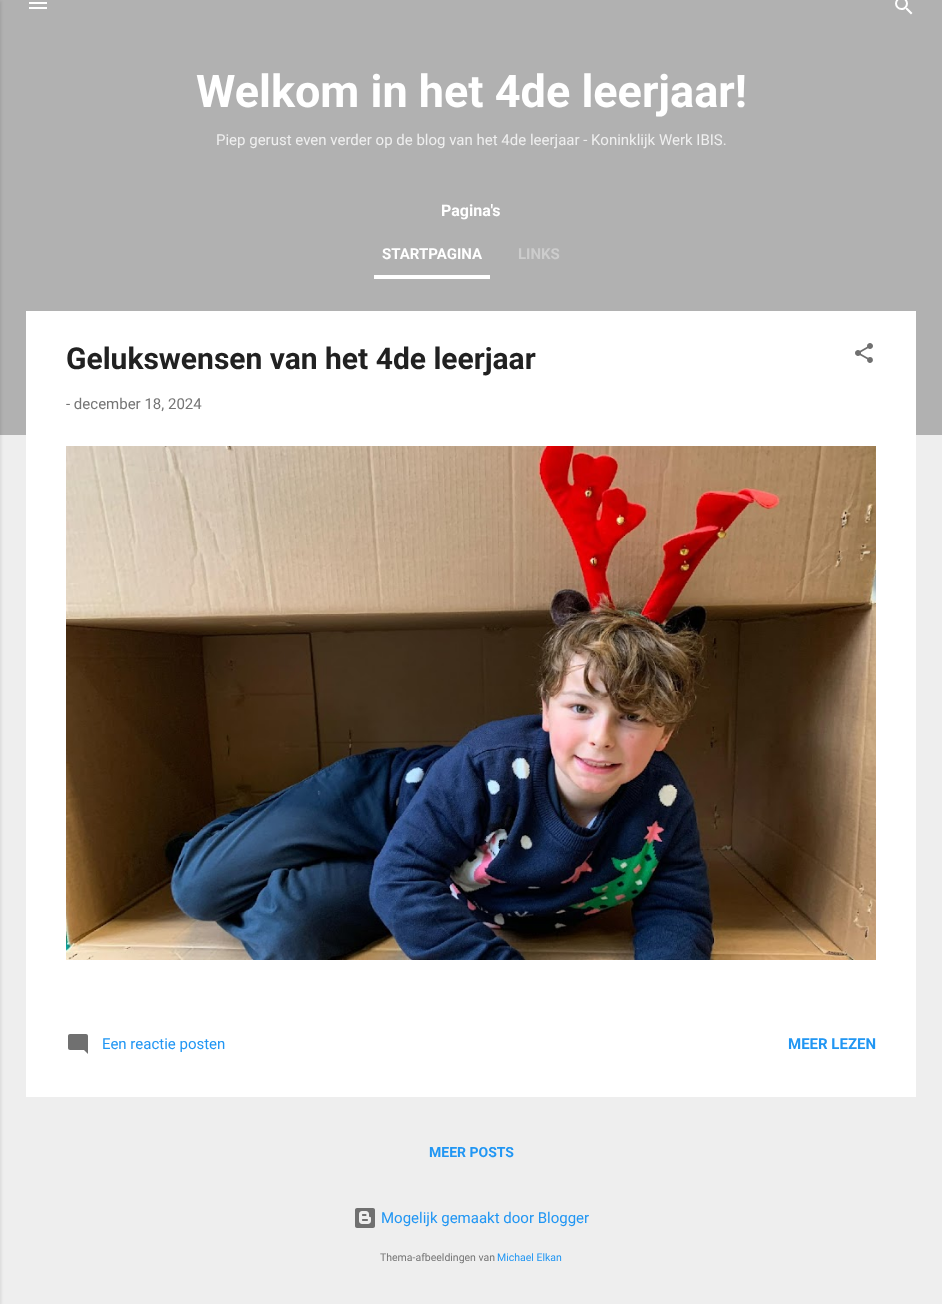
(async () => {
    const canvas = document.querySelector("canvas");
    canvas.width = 942;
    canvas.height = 1304;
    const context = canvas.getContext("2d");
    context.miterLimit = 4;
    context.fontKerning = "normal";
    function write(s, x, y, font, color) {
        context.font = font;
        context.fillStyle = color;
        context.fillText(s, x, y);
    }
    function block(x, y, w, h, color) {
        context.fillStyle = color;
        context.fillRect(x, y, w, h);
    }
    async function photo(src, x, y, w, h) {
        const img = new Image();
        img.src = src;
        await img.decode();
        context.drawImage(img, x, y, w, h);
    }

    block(0, 0, 942, 1304, "rgb(238, 238, 238)");
    block(0, 0, 942, 435, "rgb(177, 177, 177)");
    context.fillStyle = "rgba(0, 0, 0, 0.1)";
    context.filter = "blur(1.5px)";
    context.beginPath();
    context.rect(-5, 1, 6, 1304);
    context.fill();
    context.filter = "none";
    await photo("media/1.png", 29, 2, 18, 7);
    await photo("media/2.png", 895, 0, 18, 15);
    write("Welkom in het 4de leerjaar!", 196, 107, "bold 45px Roboto", "rgb(255, 255, 255)");
    write("Piep gerust even verder op de blog van het 4de leerjaar - Koninklijk Werk IBIS.", 216, 145, "15px Roboto", "rgb(239, 239, 239)");
    write("Pagina's", 441, 216, "bold 16px Roboto", "rgb(255, 255, 255)");
    block(374, 275, 116, 4, "rgb(255, 255, 255)");
    write("STARTPAGINA", 382, 259, "bold 15px Roboto", "rgb(255, 255, 255)");
    write("LINKS", 518, 259, "bold 15px Roboto", "rgb(204, 204, 204)");
    block(26, 311, 890, 786, "rgb(255, 255, 255)");
    write("Gelukswensen van het 4de leerjaar", 66, 369, "bold 30px Roboto", "rgb(33, 33, 33)");
    await photo("media/3.png", 855, 343, 18, 20);
    write("- december 18, 2024", 66, 409, "15px Roboto", "rgb(117, 117, 117)");
    await photo("media/4.png", 66, 446, 810, 514);
    await photo("media/5.png", 68, 1034, 20, 20);
    write("Een reactie posten", 102, 1049, "15px Roboto", "rgb(33, 150, 243)");
    write("MEER LEZEN", 788, 1049, "bold 15px Roboto", "rgb(33, 150, 243)");
    write("MEER POSTS", 429, 1157, "bold 14px Roboto", "rgb(33, 150, 243)");
    await photo("media/6.png", 355, 1208, 20, 20);
    write("Mogelijk gemaakt door Blogger", 381, 1223, "15px Roboto", "rgb(33, 150, 243)");
    write("Thema-afbeeldingen van", 380, 1261, "10.5px Roboto", "rgb(117, 117, 117)");
    write("Michael Elkan", 497, 1261, "10.5px Roboto", "rgb(33, 150, 243)");
})();
